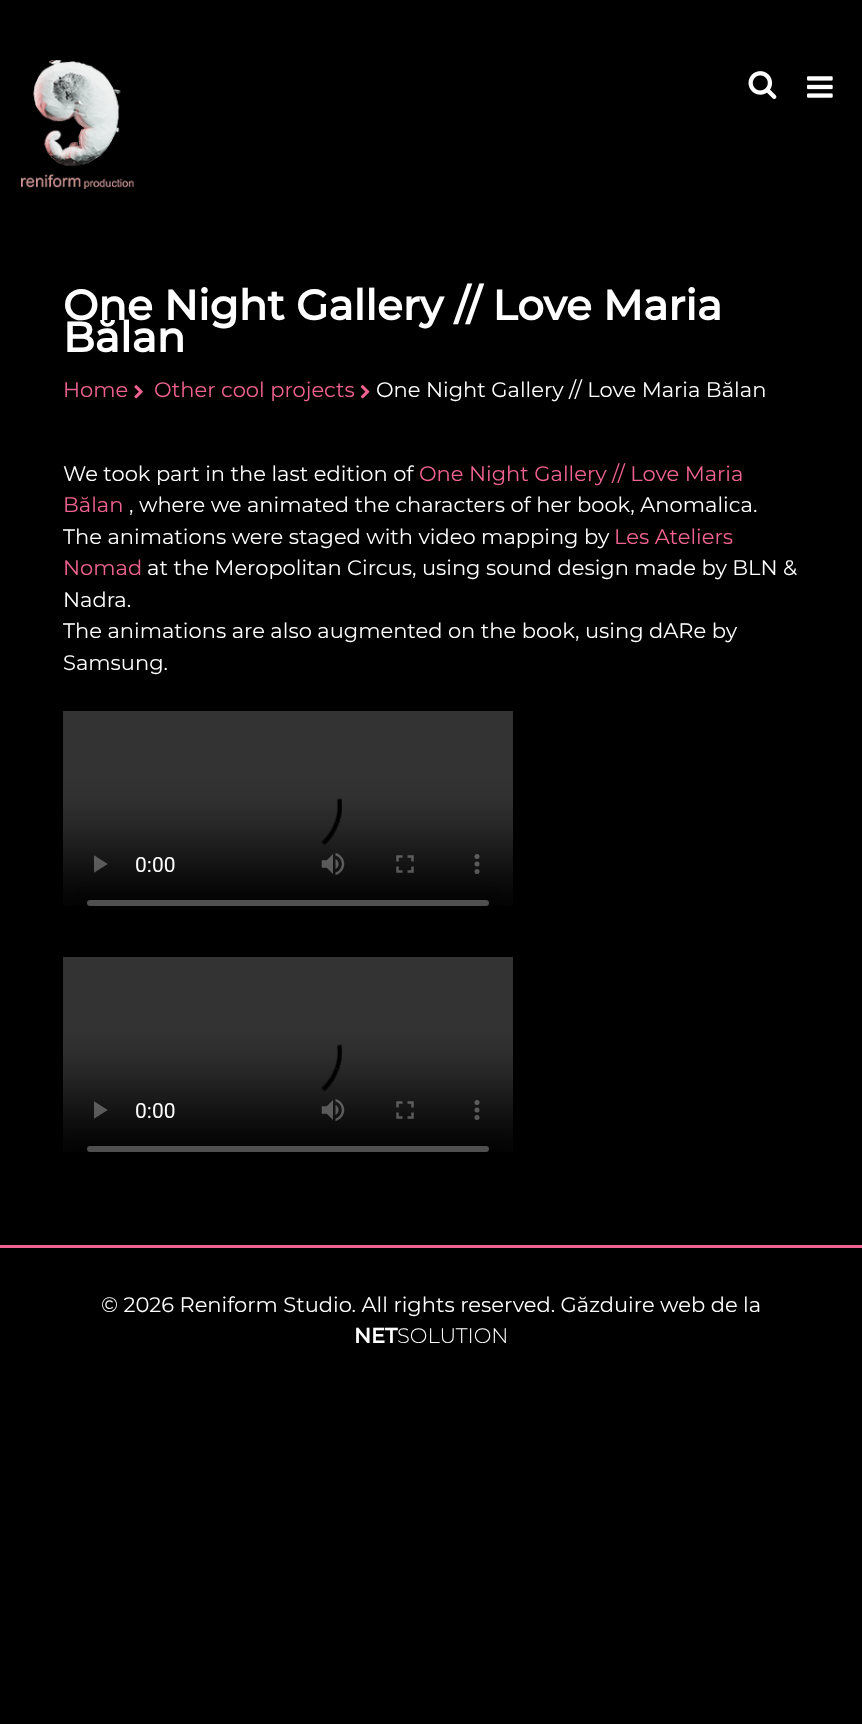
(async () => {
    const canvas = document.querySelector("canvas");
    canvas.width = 862;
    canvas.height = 1724;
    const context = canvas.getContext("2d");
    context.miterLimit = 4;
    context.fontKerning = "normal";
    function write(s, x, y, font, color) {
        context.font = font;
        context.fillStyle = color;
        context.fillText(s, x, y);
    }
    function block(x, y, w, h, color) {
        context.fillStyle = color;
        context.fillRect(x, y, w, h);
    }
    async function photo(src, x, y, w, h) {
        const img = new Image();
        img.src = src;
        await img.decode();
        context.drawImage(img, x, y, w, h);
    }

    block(0, 0, 862, 1724, "rgb(0, 0, 0)");
    await photo("media/1.png", 21, 60, 113, 129);
    await photo("media/2.png", 748, 71, 29, 28);
    await photo("media/3.png", 807, 76, 26, 22);
    write("One Night Gallery // Love Maria", 63, 320, "bold 42px Montserrat", "rgb(255, 255, 255)");
    write("Bălan", 63, 352, "bold 42px Montserrat", "rgb(255, 255, 255)");
    write("Home", 63, 397, "21px Montserrat", "rgb(240, 98, 146)");
    await photo("media/4.png", 134, 385, 9, 14);
    write("Other cool projects", 154, 397, "21px Montserrat", "rgb(240, 98, 146)");
    await photo("media/5.png", 360, 385, 10, 14);
    write("One Night Gallery // Love Maria Bălan", 376, 397, "21px Montserrat", "rgb(255, 255, 255)");
    write("We took part in the last edition of", 63, 481, "21px Montserrat", "rgb(255, 255, 255)");
    write("One Night Gallery // Love Maria", 419, 481, "21px Montserrat", "rgb(240, 98, 146)");
    write("Bălan", 63, 512, "21px Montserrat", "rgb(240, 98, 146)");
    write(", where we animated the characters of her book, Anomalica.", 129, 512, "21px Montserrat", "rgb(255, 255, 255)");
    write("The animations were staged with video mapping by", 63, 544, "21px Montserrat", "rgb(255, 255, 255)");
    write("Les Ateliers", 614, 544, "21px Montserrat", "rgb(240, 98, 146)");
    write("Nomad", 63, 575, "21px Montserrat", "rgb(240, 98, 146)");
    write("at the Meropolitan Circus, using sound design made by BLN &", 147, 575, "21px Montserrat", "rgb(255, 255, 255)");
    write("Nadra.", 63, 607, "21px Montserrat", "rgb(255, 255, 255)");
    write("The animations are also augmented on the book, using dARe by", 63, 638, "21px Montserrat", "rgb(255, 255, 255)");
    write("Samsung.", 63, 670, "21px Montserrat", "rgb(255, 255, 255)");
    await photo("media/6.png", 63, 711, 450, 195);
    await photo("media/6.png", 63, 957, 450, 195);
    block(0, 1245, 862, 3, "rgb(240, 98, 146)");
    write("© 2026 Reniform Studio. All rights reserved. Găzduire web de la", 101, 1312, "21px Montserrat", "rgb(255, 255, 255)");
    write("NET", 354, 1343, "bold 21px Montserrat", "rgb(255, 255, 255)");
    write("SOLUTION", 397, 1343, "300 21px Montserrat", "rgb(255, 255, 255)");
})();
